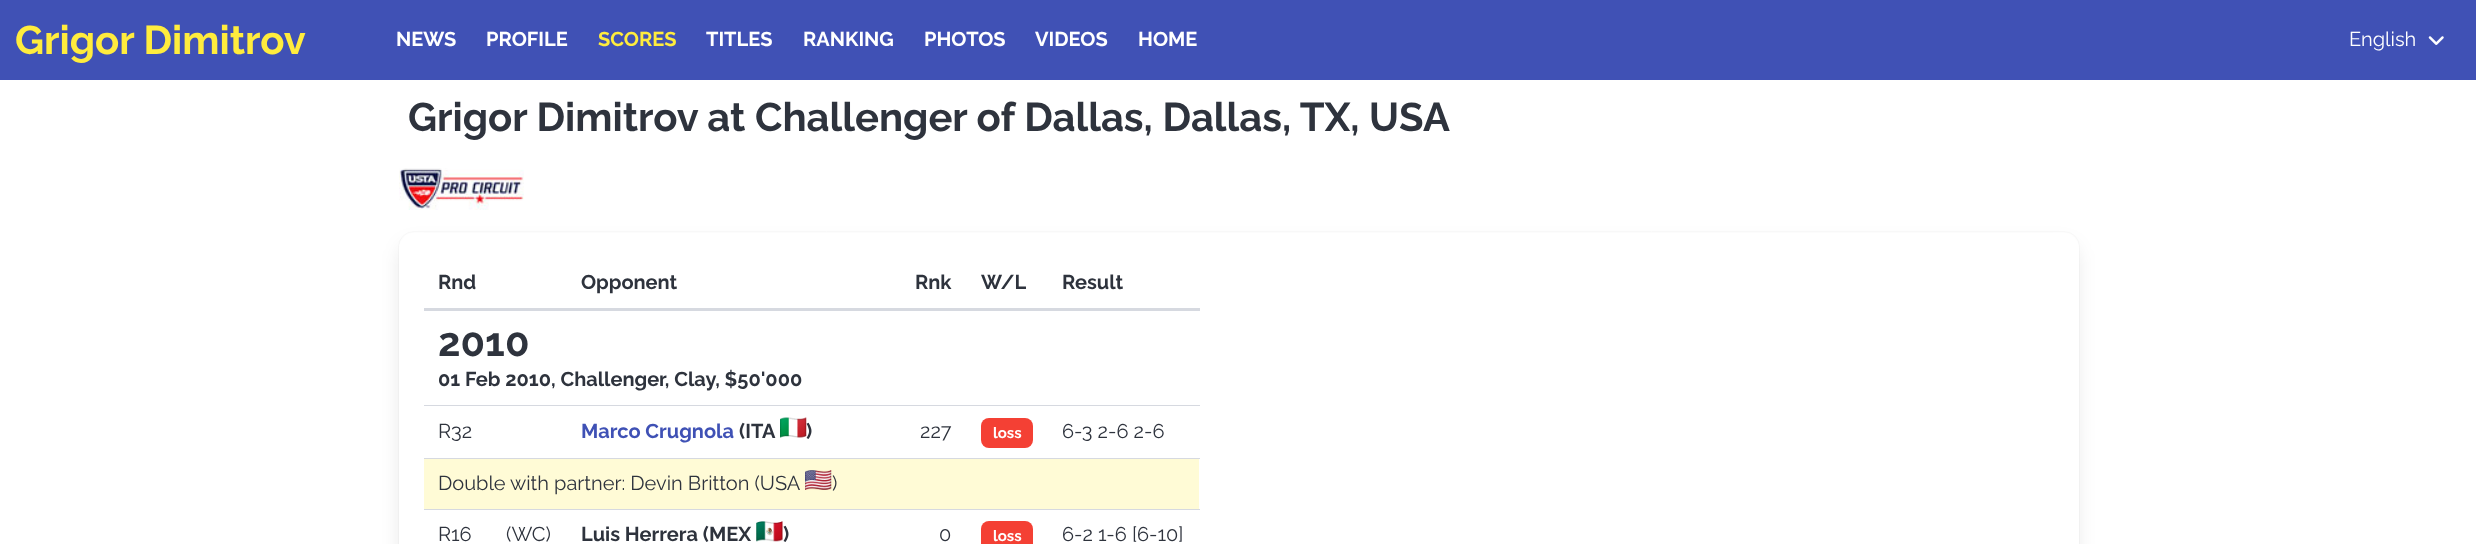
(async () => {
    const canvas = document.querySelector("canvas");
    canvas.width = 2476;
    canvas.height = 544;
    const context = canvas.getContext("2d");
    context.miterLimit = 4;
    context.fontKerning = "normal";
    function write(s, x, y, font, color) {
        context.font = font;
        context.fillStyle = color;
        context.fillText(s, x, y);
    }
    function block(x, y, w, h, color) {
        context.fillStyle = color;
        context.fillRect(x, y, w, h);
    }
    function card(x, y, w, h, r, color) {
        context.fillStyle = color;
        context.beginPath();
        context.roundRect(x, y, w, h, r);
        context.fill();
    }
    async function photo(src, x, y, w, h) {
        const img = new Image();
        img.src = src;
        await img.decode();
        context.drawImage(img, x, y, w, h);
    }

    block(0, 0, 2476, 544, "rgb(255, 255, 255)");
    block(0, 0, 2476, 80, "rgb(64, 81, 181)");
    write("Grigor Dimitrov", 15, 54, "bold 40px Raleway", "rgb(255, 236, 61)");
    write("NEWS", 396, 46, "bold 20px Raleway", "rgb(255, 255, 255)");
    write("PROFILE", 486, 46, "bold 20px Raleway", "rgb(255, 255, 255)");
    write("SCORES", 598, 46, "bold 20px Raleway", "rgb(255, 236, 61)");
    write("TITLES", 706, 46, "bold 20px Raleway", "rgb(255, 255, 255)");
    write("RANKING", 803, 46, "bold 20px Raleway", "rgb(255, 255, 255)");
    write("PHOTOS", 924, 46, "bold 20px Raleway", "rgb(255, 255, 255)");
    write("VIDEOS", 1035, 46, "bold 20px Raleway", "rgb(255, 255, 255)");
    write("HOME", 1138, 46, "bold 20px Raleway", "rgb(255, 255, 255)");
    write("English", 2349, 46, "20px Raleway", "rgb(255, 255, 255)");
    await photo("media/1.png", 2428, 36, 16, 9);
    write("Grigor Dimitrov at Challenger of Dallas, Dallas, TX, USA", 408, 131, "bold 40px Raleway", "rgb(46, 51, 61)");
    await photo("media/2.png", 399, 168, 125, 42);
    context.beginPath();
    context.roundRect(398.5, 231.5, 1681, 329, 15.5);
    context.strokeStyle = "rgb(250, 250, 250)";
    context.stroke();
    context.fillStyle = "rgba(9, 10, 12, 0.1)";
    context.filter = "blur(10px)";
    context.beginPath();
    context.roundRect(401, 245, 1675, 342, 13);
    context.fill();
    context.filter = "none";
    card(399, 233, 1680, 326, 15, "rgb(255, 255, 255)");
    write("Rnd", 438, 289, "bold 20px Raleway", "rgb(46, 51, 61)");
    write("Opponent", 581, 289, "bold 20px Raleway", "rgb(46, 51, 61)");
    write("Rnk", 915, 289, "bold 20px Raleway", "rgb(46, 51, 61)");
    write("W/L", 981, 289, "bold 20px Raleway", "rgb(46, 51, 61)");
    block(424, 308, 776, 3, "rgb(214, 217, 224)");
    write("Result", 1062, 289, "bold 20px Raleway", "rgb(46, 51, 61)");
    block(424, 405, 776, 1, "rgb(214, 217, 224)");
    write("2010", 438, 356, "bold 40px Raleway", "rgb(46, 51, 61)");
    write("01 Feb 2010, Challenger, Clay, $50'000", 438, 386, "bold 20px Raleway", "rgb(46, 51, 61)");
    write("R32", 438, 438, "20px Raleway", "rgb(46, 51, 61)");
    write("Marco Crugnola", 581, 438, "bold 20px Raleway", "rgb(63, 81, 181)");
    write("(ITA", 739, 438, "bold 20px Raleway", "rgb(46, 51, 61)");
    await photo("media/3.png", 780, 417, 27, 21);
    write(")", 806, 438, "bold 20px Raleway", "rgb(46, 51, 61)");
    write("227", 920, 438, "20px Raleway", "rgb(46, 51, 61)");
    card(981, 418, 52, 30, 8, "rgb(244, 64, 52)");
    write("loss", 993, 438, "bold 15px Raleway", "rgb(255, 255, 255)");
    block(424, 458, 776, 1, "rgb(214, 217, 224)");
    write("6-3 2-6 2-6", 1062, 438, "20px Raleway", "rgb(46, 51, 61)");
    block(424, 459, 775, 50, "rgb(255, 251, 214)");
    block(424, 509, 776, 1, "rgb(214, 217, 224)");
    write("Double", 438, 490, "20px Raleway", "rgb(46, 51, 61)");
    write("with partner: Devin Britton (USA", 510, 490, "20px Raleway", "rgb(46, 51, 61)");
    await photo("media/4.png", 805, 470, 27, 20);
    write(")", 832, 490, "20px Raleway", "rgb(46, 51, 61)");
    write("R16", 438, 541, "20px Raleway", "rgb(46, 51, 61)");
    write("(WC)", 506, 541, "20px Raleway", "rgb(46, 51, 61)");
    write("Luis Herrera (MEX", 581, 541, "bold 20px Raleway", "rgb(46, 51, 61)");
    await photo("media/5.png", 756, 521, 27, 21);
    write(")", 783, 541, "bold 20px Raleway", "rgb(46, 51, 61)");
    write("0", 939, 541, "20px Raleway", "rgb(46, 51, 61)");
    card(981, 521, 52, 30, 8, "rgb(244, 64, 52)");
    write("loss", 993, 541, "bold 15px Raleway", "rgb(255, 255, 255)");
    write("6-2 1-6 [6-10]", 1062, 541, "20px Raleway", "rgb(46, 51, 61)");
})();
